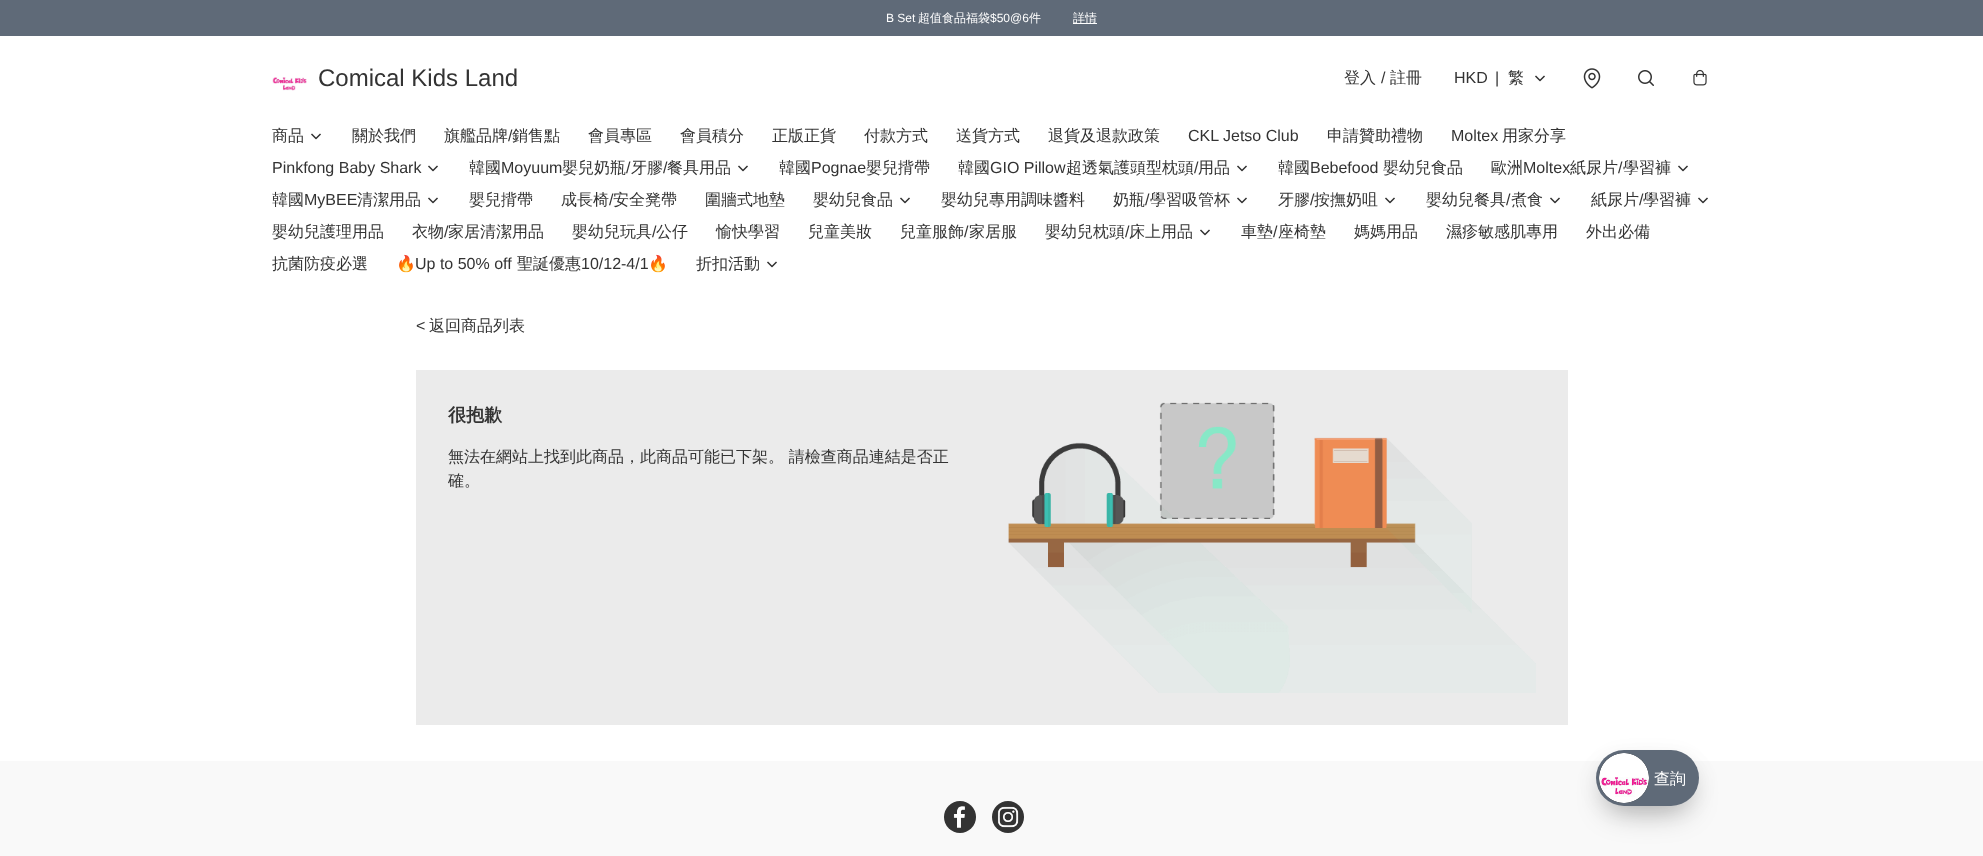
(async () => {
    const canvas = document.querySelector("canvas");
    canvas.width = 1983;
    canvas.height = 856;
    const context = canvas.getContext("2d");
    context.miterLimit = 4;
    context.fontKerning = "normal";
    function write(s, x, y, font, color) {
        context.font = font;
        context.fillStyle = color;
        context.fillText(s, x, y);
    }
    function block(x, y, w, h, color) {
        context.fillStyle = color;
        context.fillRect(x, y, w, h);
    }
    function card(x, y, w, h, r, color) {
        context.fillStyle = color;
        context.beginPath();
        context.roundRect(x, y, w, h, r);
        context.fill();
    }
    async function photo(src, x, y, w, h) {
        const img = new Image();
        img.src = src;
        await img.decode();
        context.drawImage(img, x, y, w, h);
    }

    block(0, 0, 1983, 856, "rgb(255, 255, 255)");
    block(0, 0, 1983, 36, "rgb(95, 106, 120)");
    write("B Set", 886, 22, "12px Liberation Sans", "rgb(255, 255, 255)");
    write("超值食品福袋", 918, 22, "500 12px WenQuanYi Zen Hei", "rgb(255, 255, 255)");
    write("$50@6", 990, 22, "12px Liberation Sans", "rgb(255, 255, 255)");
    write("件", 1029, 22, "500 12px WenQuanYi Zen Hei", "rgb(255, 255, 255)");
    block(1073, 23, 24, 1, "rgb(255, 255, 255)");
    write("詳情", 1073, 22, "500 12px WenQuanYi Zen Hei", "rgb(255, 255, 255)");
    await photo("media/1.png", 272, 77, 35, 14);
    write("Comical Kids Land", 318, 86, "24px Liberation Sans", "rgb(51, 51, 51)");
    write("登入", 1344, 83, "500 16px WenQuanYi Zen Hei", "rgb(51, 51, 51)");
    write("/", 1381, 83, "16px Liberation Sans", "rgb(51, 51, 51)");
    write("註冊", 1390, 83, "500 16px WenQuanYi Zen Hei", "rgb(51, 51, 51)");
    write("HKD", 1454, 83, "16px Liberation Sans", "rgb(51, 51, 51)");
    write("|", 1495, 83, "16px Liberation Sans", "rgb(51, 51, 51)");
    write("繁", 1508, 83, "500 16px WenQuanYi Zen Hei", "rgb(51, 51, 51)");
    context.beginPath();
    context.moveTo(1536, 76.5);
    context.lineTo(1540, 80.5);
    context.lineTo(1544, 76.5);
    context.strokeStyle = "rgb(51, 51, 51)";
    context.lineWidth = 1.5;
    context.lineCap = "square";
    context.lineJoin = "round";
    context.stroke();
    await photo("media/2.png", 1583, 68, 18, 21);
    await photo("media/3.png", 1638, 70, 16, 16);
    await photo("media/4.png", 1693, 69, 14, 17);
    write("商品", 272, 141, "500 16px WenQuanYi Zen Hei", "rgb(51, 51, 51)");
    context.beginPath();
    context.moveTo(312, 134.5);
    context.lineTo(316, 138.5);
    context.lineTo(320, 134.5);
    context.stroke();
    write("關於我們", 352, 141, "500 16px WenQuanYi Zen Hei", "rgb(51, 51, 51)");
    write("旗艦品牌", 444, 141, "500 16px WenQuanYi Zen Hei", "rgb(51, 51, 51)");
    write("/", 508, 141, "16px Liberation Sans", "rgb(51, 51, 51)");
    write("銷售點", 512, 141, "500 16px WenQuanYi Zen Hei", "rgb(51, 51, 51)");
    write("會員專區", 588, 141, "500 16px WenQuanYi Zen Hei", "rgb(51, 51, 51)");
    write("會員積分", 680, 141, "500 16px WenQuanYi Zen Hei", "rgb(51, 51, 51)");
    write("正版正貨", 772, 141, "500 16px WenQuanYi Zen Hei", "rgb(51, 51, 51)");
    write("付款方式", 864, 141, "500 16px WenQuanYi Zen Hei", "rgb(51, 51, 51)");
    write("送貨方式", 956, 141, "500 16px WenQuanYi Zen Hei", "rgb(51, 51, 51)");
    write("退貨及退款政策", 1048, 141, "500 16px WenQuanYi Zen Hei", "rgb(51, 51, 51)");
    write("CKL Jetso Club", 1188, 141, "16px Liberation Sans", "rgb(51, 51, 51)");
    write("申請贊助禮物", 1327, 141, "500 16px WenQuanYi Zen Hei", "rgb(51, 51, 51)");
    write("Moltex", 1451, 141, "16px Liberation Sans", "rgb(51, 51, 51)");
    write("用家分享", 1502, 141, "500 16px WenQuanYi Zen Hei", "rgb(51, 51, 51)");
    write("Pinkfong Baby Shark", 272, 173, "16px Liberation Sans", "rgb(51, 51, 51)");
    context.beginPath();
    context.moveTo(429, 166.5);
    context.lineTo(433, 170.5);
    context.lineTo(437, 166.5);
    context.stroke();
    write("韓國", 469, 173, "500 16px WenQuanYi Zen Hei", "rgb(51, 51, 51)");
    write("Moyuum", 501, 173, "16px Liberation Sans", "rgb(51, 51, 51)");
    write("嬰兒奶瓶", 562, 173, "500 16px WenQuanYi Zen Hei", "rgb(51, 51, 51)");
    write("/", 626, 173, "16px Liberation Sans", "rgb(51, 51, 51)");
    write("牙膠", 631, 173, "500 16px WenQuanYi Zen Hei", "rgb(51, 51, 51)");
    write("/", 663, 173, "16px Liberation Sans", "rgb(51, 51, 51)");
    write("餐具用品", 667, 173, "500 16px WenQuanYi Zen Hei", "rgb(51, 51, 51)");
    context.beginPath();
    context.moveTo(739, 166.5);
    context.lineTo(743, 170.5);
    context.lineTo(747, 166.5);
    context.stroke();
    write("韓國", 779, 173, "500 16px WenQuanYi Zen Hei", "rgb(51, 51, 51)");
    write("Pognae", 811, 173, "16px Liberation Sans", "rgb(51, 51, 51)");
    write("嬰兒揹帶", 866, 173, "500 16px WenQuanYi Zen Hei", "rgb(51, 51, 51)");
    write("韓國", 958, 173, "500 16px WenQuanYi Zen Hei", "rgb(51, 51, 51)");
    write("GIO Pillow", 990, 173, "16px Liberation Sans", "rgb(51, 51, 51)");
    write("超透氣護頭型枕頭", 1066, 173, "500 16px WenQuanYi Zen Hei", "rgb(51, 51, 51)");
    write("/", 1194, 173, "16px Liberation Sans", "rgb(51, 51, 51)");
    write("用品", 1198, 173, "500 16px WenQuanYi Zen Hei", "rgb(51, 51, 51)");
    context.beginPath();
    context.moveTo(1238, 166.5);
    context.lineTo(1242, 170.5);
    context.lineTo(1246, 166.5);
    context.stroke();
    write("韓國", 1278, 173, "500 16px WenQuanYi Zen Hei", "rgb(51, 51, 51)");
    write("Bebefood", 1310, 173, "16px Liberation Sans", "rgb(51, 51, 51)");
    write("嬰幼兒食品", 1383, 173, "500 16px WenQuanYi Zen Hei", "rgb(51, 51, 51)");
    write("歐洲", 1491, 173, "500 16px WenQuanYi Zen Hei", "rgb(51, 51, 51)");
    write("Moltex", 1523, 173, "16px Liberation Sans", "rgb(51, 51, 51)");
    write("紙尿片", 1570, 173, "500 16px WenQuanYi Zen Hei", "rgb(51, 51, 51)");
    write("/", 1618, 173, "16px Liberation Sans", "rgb(51, 51, 51)");
    write("學習褲", 1623, 173, "500 16px WenQuanYi Zen Hei", "rgb(51, 51, 51)");
    context.beginPath();
    context.moveTo(1679, 166.5);
    context.lineTo(1683, 170.5);
    context.lineTo(1687, 166.5);
    context.stroke();
    write("韓國", 272, 205, "500 16px WenQuanYi Zen Hei", "rgb(51, 51, 51)");
    write("MyBEE", 304, 205, "16px Liberation Sans", "rgb(51, 51, 51)");
    write("清潔用品", 357, 205, "500 16px WenQuanYi Zen Hei", "rgb(51, 51, 51)");
    context.beginPath();
    context.moveTo(429, 198.5);
    context.lineTo(433, 202.5);
    context.lineTo(437, 198.5);
    context.stroke();
    write("嬰兒揹帶", 469, 205, "500 16px WenQuanYi Zen Hei", "rgb(51, 51, 51)");
    write("成長椅", 561, 205, "500 16px WenQuanYi Zen Hei", "rgb(51, 51, 51)");
    write("/", 609, 205, "16px Liberation Sans", "rgb(51, 51, 51)");
    write("安全凳帶", 613, 205, "500 16px WenQuanYi Zen Hei", "rgb(51, 51, 51)");
    write("圍牆式地墊", 705, 205, "500 16px WenQuanYi Zen Hei", "rgb(51, 51, 51)");
    write("嬰幼兒食品", 813, 205, "500 16px WenQuanYi Zen Hei", "rgb(51, 51, 51)");
    context.beginPath();
    context.moveTo(901, 198.5);
    context.lineTo(905, 202.5);
    context.lineTo(909, 198.5);
    context.stroke();
    write("嬰幼兒專用調味醬料", 941, 205, "500 16px WenQuanYi Zen Hei", "rgb(51, 51, 51)");
    write("奶瓶", 1113, 205, "500 16px WenQuanYi Zen Hei", "rgb(51, 51, 51)");
    write("/", 1145, 205, "16px Liberation Sans", "rgb(51, 51, 51)");
    write("學習吸管杯", 1150, 205, "500 16px WenQuanYi Zen Hei", "rgb(51, 51, 51)");
    context.beginPath();
    context.moveTo(1238, 198.5);
    context.lineTo(1242, 202.5);
    context.lineTo(1246, 198.5);
    context.stroke();
    write("牙膠", 1278, 205, "500 16px WenQuanYi Zen Hei", "rgb(51, 51, 51)");
    write("/", 1310, 205, "16px Liberation Sans", "rgb(51, 51, 51)");
    write("按撫奶咀", 1314, 205, "500 16px WenQuanYi Zen Hei", "rgb(51, 51, 51)");
    context.beginPath();
    context.moveTo(1386, 198.5);
    context.lineTo(1390, 202.5);
    context.lineTo(1394, 198.5);
    context.stroke();
    write("嬰幼兒餐具", 1426, 205, "500 16px WenQuanYi Zen Hei", "rgb(51, 51, 51)");
    write("/", 1506, 205, "16px Liberation Sans", "rgb(51, 51, 51)");
    write("煮食", 1511, 205, "500 16px WenQuanYi Zen Hei", "rgb(51, 51, 51)");
    context.beginPath();
    context.moveTo(1551, 198.5);
    context.lineTo(1555, 202.5);
    context.lineTo(1559, 198.5);
    context.stroke();
    write("紙尿片", 1591, 205, "500 16px WenQuanYi Zen Hei", "rgb(51, 51, 51)");
    write("/", 1639, 205, "16px Liberation Sans", "rgb(51, 51, 51)");
    write("學習褲", 1643, 205, "500 16px WenQuanYi Zen Hei", "rgb(51, 51, 51)");
    context.beginPath();
    context.moveTo(1699, 198.5);
    context.lineTo(1703, 202.5);
    context.lineTo(1707, 198.5);
    context.stroke();
    write("嬰幼兒護理用品", 272, 237, "500 16px WenQuanYi Zen Hei", "rgb(51, 51, 51)");
    write("衣物", 412, 237, "500 16px WenQuanYi Zen Hei", "rgb(51, 51, 51)");
    write("/", 444, 237, "16px Liberation Sans", "rgb(51, 51, 51)");
    write("家居清潔用品", 448, 237, "500 16px WenQuanYi Zen Hei", "rgb(51, 51, 51)");
    write("嬰幼兒玩具", 572, 237, "500 16px WenQuanYi Zen Hei", "rgb(51, 51, 51)");
    write("/", 652, 237, "16px Liberation Sans", "rgb(51, 51, 51)");
    write("公仔", 656, 237, "500 16px WenQuanYi Zen Hei", "rgb(51, 51, 51)");
    write("愉快學習", 716, 237, "500 16px WenQuanYi Zen Hei", "rgb(51, 51, 51)");
    write("兒童美妝", 808, 237, "500 16px WenQuanYi Zen Hei", "rgb(51, 51, 51)");
    write("兒童服飾", 900, 237, "500 16px WenQuanYi Zen Hei", "rgb(51, 51, 51)");
    write("/", 964, 237, "16px Liberation Sans", "rgb(51, 51, 51)");
    write("家居服", 969, 237, "500 16px WenQuanYi Zen Hei", "rgb(51, 51, 51)");
    write("嬰幼兒枕頭", 1045, 237, "500 16px WenQuanYi Zen Hei", "rgb(51, 51, 51)");
    write("/", 1125, 237, "16px Liberation Sans", "rgb(51, 51, 51)");
    write("床上用品", 1129, 237, "500 16px WenQuanYi Zen Hei", "rgb(51, 51, 51)");
    context.beginPath();
    context.moveTo(1201, 230.5);
    context.lineTo(1205, 234.5);
    context.lineTo(1209, 230.5);
    context.stroke();
    write("車墊", 1241, 237, "500 16px WenQuanYi Zen Hei", "rgb(51, 51, 51)");
    write("/", 1273, 237, "16px Liberation Sans", "rgb(51, 51, 51)");
    write("座椅墊", 1278, 237, "500 16px WenQuanYi Zen Hei", "rgb(51, 51, 51)");
    write("媽媽用品", 1354, 237, "500 16px WenQuanYi Zen Hei", "rgb(51, 51, 51)");
    write("濕疹敏感肌專用", 1446, 237, "500 16px WenQuanYi Zen Hei", "rgb(51, 51, 51)");
    write("外出必備", 1586, 237, "500 16px WenQuanYi Zen Hei", "rgb(51, 51, 51)");
    write("抗菌防疫必選", 272, 269, "500 16px WenQuanYi Zen Hei", "rgb(51, 51, 51)");
    write("🔥", 396, 269, "16px Noto Color Emoji", "rgb(51, 51, 51)");
    write("Up to 50% off", 415, 269, "16px Liberation Sans", "rgb(51, 51, 51)");
    write("聖誕優惠", 517, 269, "500 16px WenQuanYi Zen Hei", "rgb(51, 51, 51)");
    write("10/12-4/1", 581, 269, "16px Liberation Sans", "rgb(51, 51, 51)");
    write("🔥", 648, 269, "16px Noto Color Emoji", "rgb(51, 51, 51)");
    write("折扣活動", 696, 269, "500 16px WenQuanYi Zen Hei", "rgb(51, 51, 51)");
    context.beginPath();
    context.moveTo(768, 262.5);
    context.lineTo(772, 266.5);
    context.lineTo(776, 262.5);
    context.stroke();
    write("<", 416, 331, "16px Liberation Sans", "rgb(51, 51, 51)");
    write("返回商品列表", 429, 331, "500 16px WenQuanYi Zen Hei", "rgb(51, 51, 51)");
    block(416, 370, 1152, 355, "rgb(235, 235, 235)");
    write("很抱歉", 448, 421, "bold 18px WenQuanYi Zen Hei", "rgb(51, 51, 51)");
    write("無法在網站上找到此商品，此商品可能已下架。 請檢查商品連結是否正", 448, 462, "500 16px WenQuanYi Zen Hei", "rgb(51, 51, 51)");
    write("確。", 448, 486, "500 16px WenQuanYi Zen Hei", "rgb(51, 51, 51)");
    await photo("media/5.png", 1008, 402, 528, 291);
    block(0, 761, 1983, 95, "rgb(249, 249, 249)");
    context.fillStyle = "rgb(51, 51, 51)";
    context.beginPath();
    context.arc(960, 817, 16, 0, Math.PI * 2);
    context.fill();
    await photo("media/6.png", 953, 806, 12, 22);
    context.beginPath();
    context.arc(1008, 817, 16, 0, Math.PI * 2);
    context.fill();
    await photo("media/7.png", 997, 806, 22, 22);
    context.fillStyle = "rgba(0, 0, 0, 0.3)";
    context.filter = "blur(15px)";
    context.beginPath();
    context.roundRect(1606, 775, 83, 36, 18);
    context.fill();
    context.filter = "none";
    context.fillStyle = "rgba(0, 0, 0, 0.05)";
    context.filter = "blur(10px)";
    context.beginPath();
    context.roundRect(1596, 755, 103, 56, 28);
    context.fill();
    context.filter = "none";
    card(1596, 750, 103, 56, 28, "rgb(95, 106, 120)");
    await photo("media/8.png", 1599, 753, 50, 50);
    write("查詢", 1654, 784, "500 16px WenQuanYi Zen Hei", "rgb(255, 255, 255)");
})();
